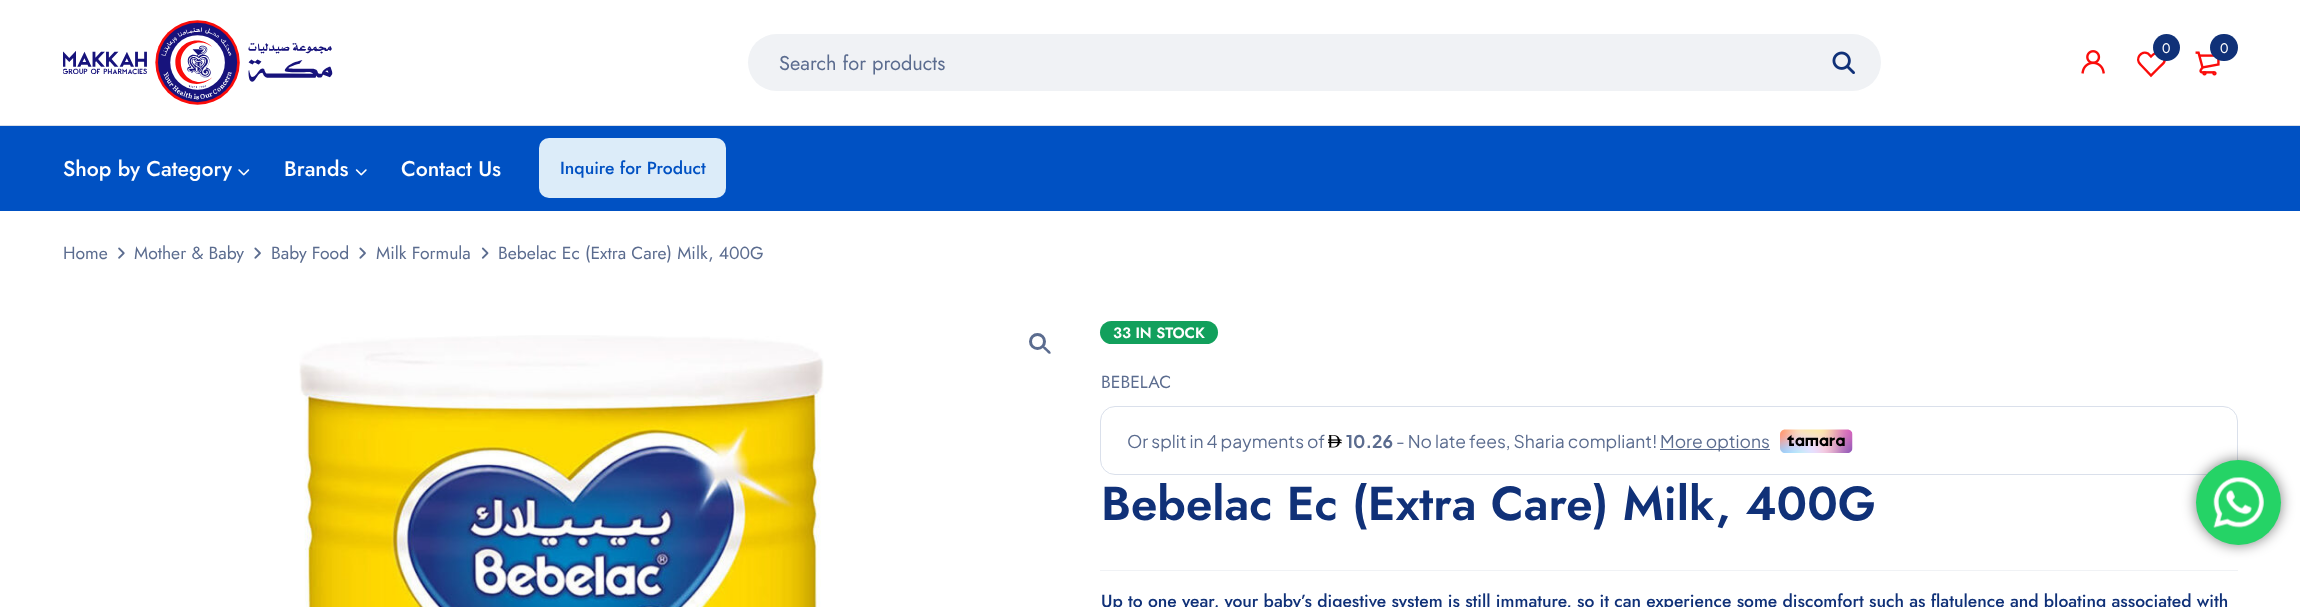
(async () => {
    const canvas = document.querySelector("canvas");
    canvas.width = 2300;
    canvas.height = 607;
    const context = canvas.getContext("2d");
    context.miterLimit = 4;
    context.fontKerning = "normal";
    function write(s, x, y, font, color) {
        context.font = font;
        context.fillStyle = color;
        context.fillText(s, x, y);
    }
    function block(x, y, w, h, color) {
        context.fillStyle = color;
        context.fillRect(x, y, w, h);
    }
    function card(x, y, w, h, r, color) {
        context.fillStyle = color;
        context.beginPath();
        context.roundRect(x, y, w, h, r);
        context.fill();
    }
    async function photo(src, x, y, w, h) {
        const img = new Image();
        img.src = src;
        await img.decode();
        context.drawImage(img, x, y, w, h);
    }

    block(0, 0, 2300, 607, "rgb(255, 255, 255)");
    block(0, 125, 2300, 1, "rgb(217, 222, 232)");
    await photo("media/1.png", 63, 20, 270, 85);
    context.beginPath();
    context.moveTo(2140.5, 64.5);
    context.bezierCurveTo(2134.5, 59, 2141, 50, 2148, 53.5);
    context.lineTo(2151, 56.5);
    context.bezierCurveTo(2152.5, 55, 2153.5, 54, 2155.5, 53);
    context.bezierCurveTo(2161, 51, 2166.5, 57, 2164, 62.5);
    context.bezierCurveTo(2162.5, 64.5, 2160, 66.5, 2158.5, 68);
    context.lineTo(2151, 75.5);
    context.closePath();
    context.strokeStyle = "rgb(250, 12, 10)";
    context.lineWidth = 2.4;
    context.stroke();
    context.fillStyle = "rgb(16, 49, 120)";
    context.beginPath();
    context.arc(2166.5, 47.5, 13.5, 0, Math.PI * 2);
    context.fill();
    write("0", 2162, 53, "14px Jost", "rgb(255, 255, 255)");
    await photo("media/2.png", 2195, 51, 25, 25);
    card(2210, 34, 28, 27, 13.5, "rgb(16, 49, 120)");
    write("0", 2220, 53, "14px Jost", "rgb(255, 255, 255)");
    await photo("media/3.png", 2081, 50, 24, 24);
    card(748, 34, 1133, 57, 28.5, "rgb(240, 242, 245)");
    write("Search for products", 779, 70, "20px Jost", "rgb(91, 108, 143)");
    await photo("media/4.png", 1832, 51, 23, 23);
    block(0, 126, 2300, 85, "rgb(0, 81, 195)");
    write("Shop by Category", 63, 176, "500 21.25px Jost", "rgb(255, 255, 255)");
    await photo("media/5.png", 238, 169, 12, 7);
    write("Brands", 284, 176, "500 21.25px Jost", "rgb(255, 255, 255)");
    await photo("media/6.png", 355, 169, 12, 7);
    write("Contact Us", 401, 176, "500 21.25px Jost", "rgb(255, 255, 255)");
    card(539, 138, 187, 60, 10, "rgb(220, 236, 249)");
    write("Inquire for Product", 560, 174, "500 17.5px Jost", "rgb(0, 81, 195)");
    write("Home", 63, 259, "17.5px Jost", "rgb(91, 108, 143)");
    await photo("media/7.png", 118, 247, 7, 12);
    write("Mother & Baby", 134, 259, "17.5px Jost", "rgb(91, 108, 143)");
    await photo("media/8.png", 254, 247, 7, 12);
    write("Baby Food", 271, 259, "17.5px Jost", "rgb(91, 108, 143)");
    await photo("media/8.png", 359, 247, 7, 12);
    write("Milk Formula", 376, 259, "17.5px Jost", "rgb(91, 108, 143)");
    await photo("media/9.png", 481, 247, 8, 12);
    write("Bebelac Ec (Extra Care) Milk, 400G", 498, 259, "17.5px Jost", "rgb(91, 108, 143)");
    await photo("media/10.png", 299, 335, 525, 272);
    context.beginPath();
    context.arc(1037.5, 341.5, 7, 0, Math.PI * 2);
    context.strokeStyle = "rgb(91, 108, 143)";
    context.lineWidth = 3;
    context.stroke();
    context.beginPath();
    context.moveTo(1043, 346.5);
    context.bezierCurveTo(1044.5, 345, 1047, 348.5, 1047.5, 349);
    context.bezierCurveTo(1048.5, 350, 1051.5, 352, 1050.5, 353.5);
    context.bezierCurveTo(1049, 355, 1046.5, 351.5, 1046, 351);
    context.bezierCurveTo(1045, 350, 1042, 348, 1043, 346.5);
    context.closePath();
    context.fill();
    card(1100, 321, 118, 23, 11.5, "rgb(18, 160, 92)");
    write("33 IN STOCK", 1113, 338, "600 15px Jost", "rgb(255, 255, 255)");
    write("BEBELAC", 1101, 388, "17.5px Jost", "rgb(91, 108, 143)");
    context.beginPath();
    context.roundRect(1100.5, 406.5, 1137, 68, 14.5);
    context.strokeStyle = "rgb(218, 224, 235)";
    context.lineWidth = 1;
    context.stroke();
    write("Or split in 4 payments of", 1127, 448, "17.5px Plus Jakarta Sans", "rgb(91, 108, 143)");
    await photo("media/11.png", 1328, 435, 14, 13);
    write("10.26", 1346, 448, "bold 17.5px Plus Jakarta Sans", "rgb(91, 108, 143)");
    write("- No late fees, Sharia compliant!", 1396, 448, "17.5px Plus Jakarta Sans", "rgb(91, 108, 143)");
    block(1660, 449, 110, 1, "rgb(91, 108, 143)");
    write("More options", 1660, 448, "17.5px Plus Jakarta Sans", "rgb(91, 108, 143)");
    await photo("media/12.png", 1780, 429, 73, 24);
    write("Bebelac Ec (Extra Care) Milk, 400G", 1101, 520, "600 47.5px Jost", "rgb(16, 49, 120)");
    block(1100, 570, 1138, 1, "rgb(240, 242, 245)");
    write("Up to one year, your baby’s digestive system is still immature, so it can experience some discomfort such as flatulence and bloating associated with", 1101, 607, "500 17.5px Jost", "rgb(16, 49, 120)");
    context.fillStyle = "rgba(0, 0, 0, 0.5)";
    context.filter = "blur(7px)";
    context.beginPath();
    context.roundRect(2196, 460, 85, 85, 42.5);
    context.fill();
    context.filter = "none";
    context.fillStyle = "rgb(37, 211, 102)";
    context.beginPath();
    context.arc(2238.5, 502.5, 42.5, 0, Math.PI * 2);
    context.fill();
    await photo("media/13.png", 2213, 477, 51, 51);
})();
